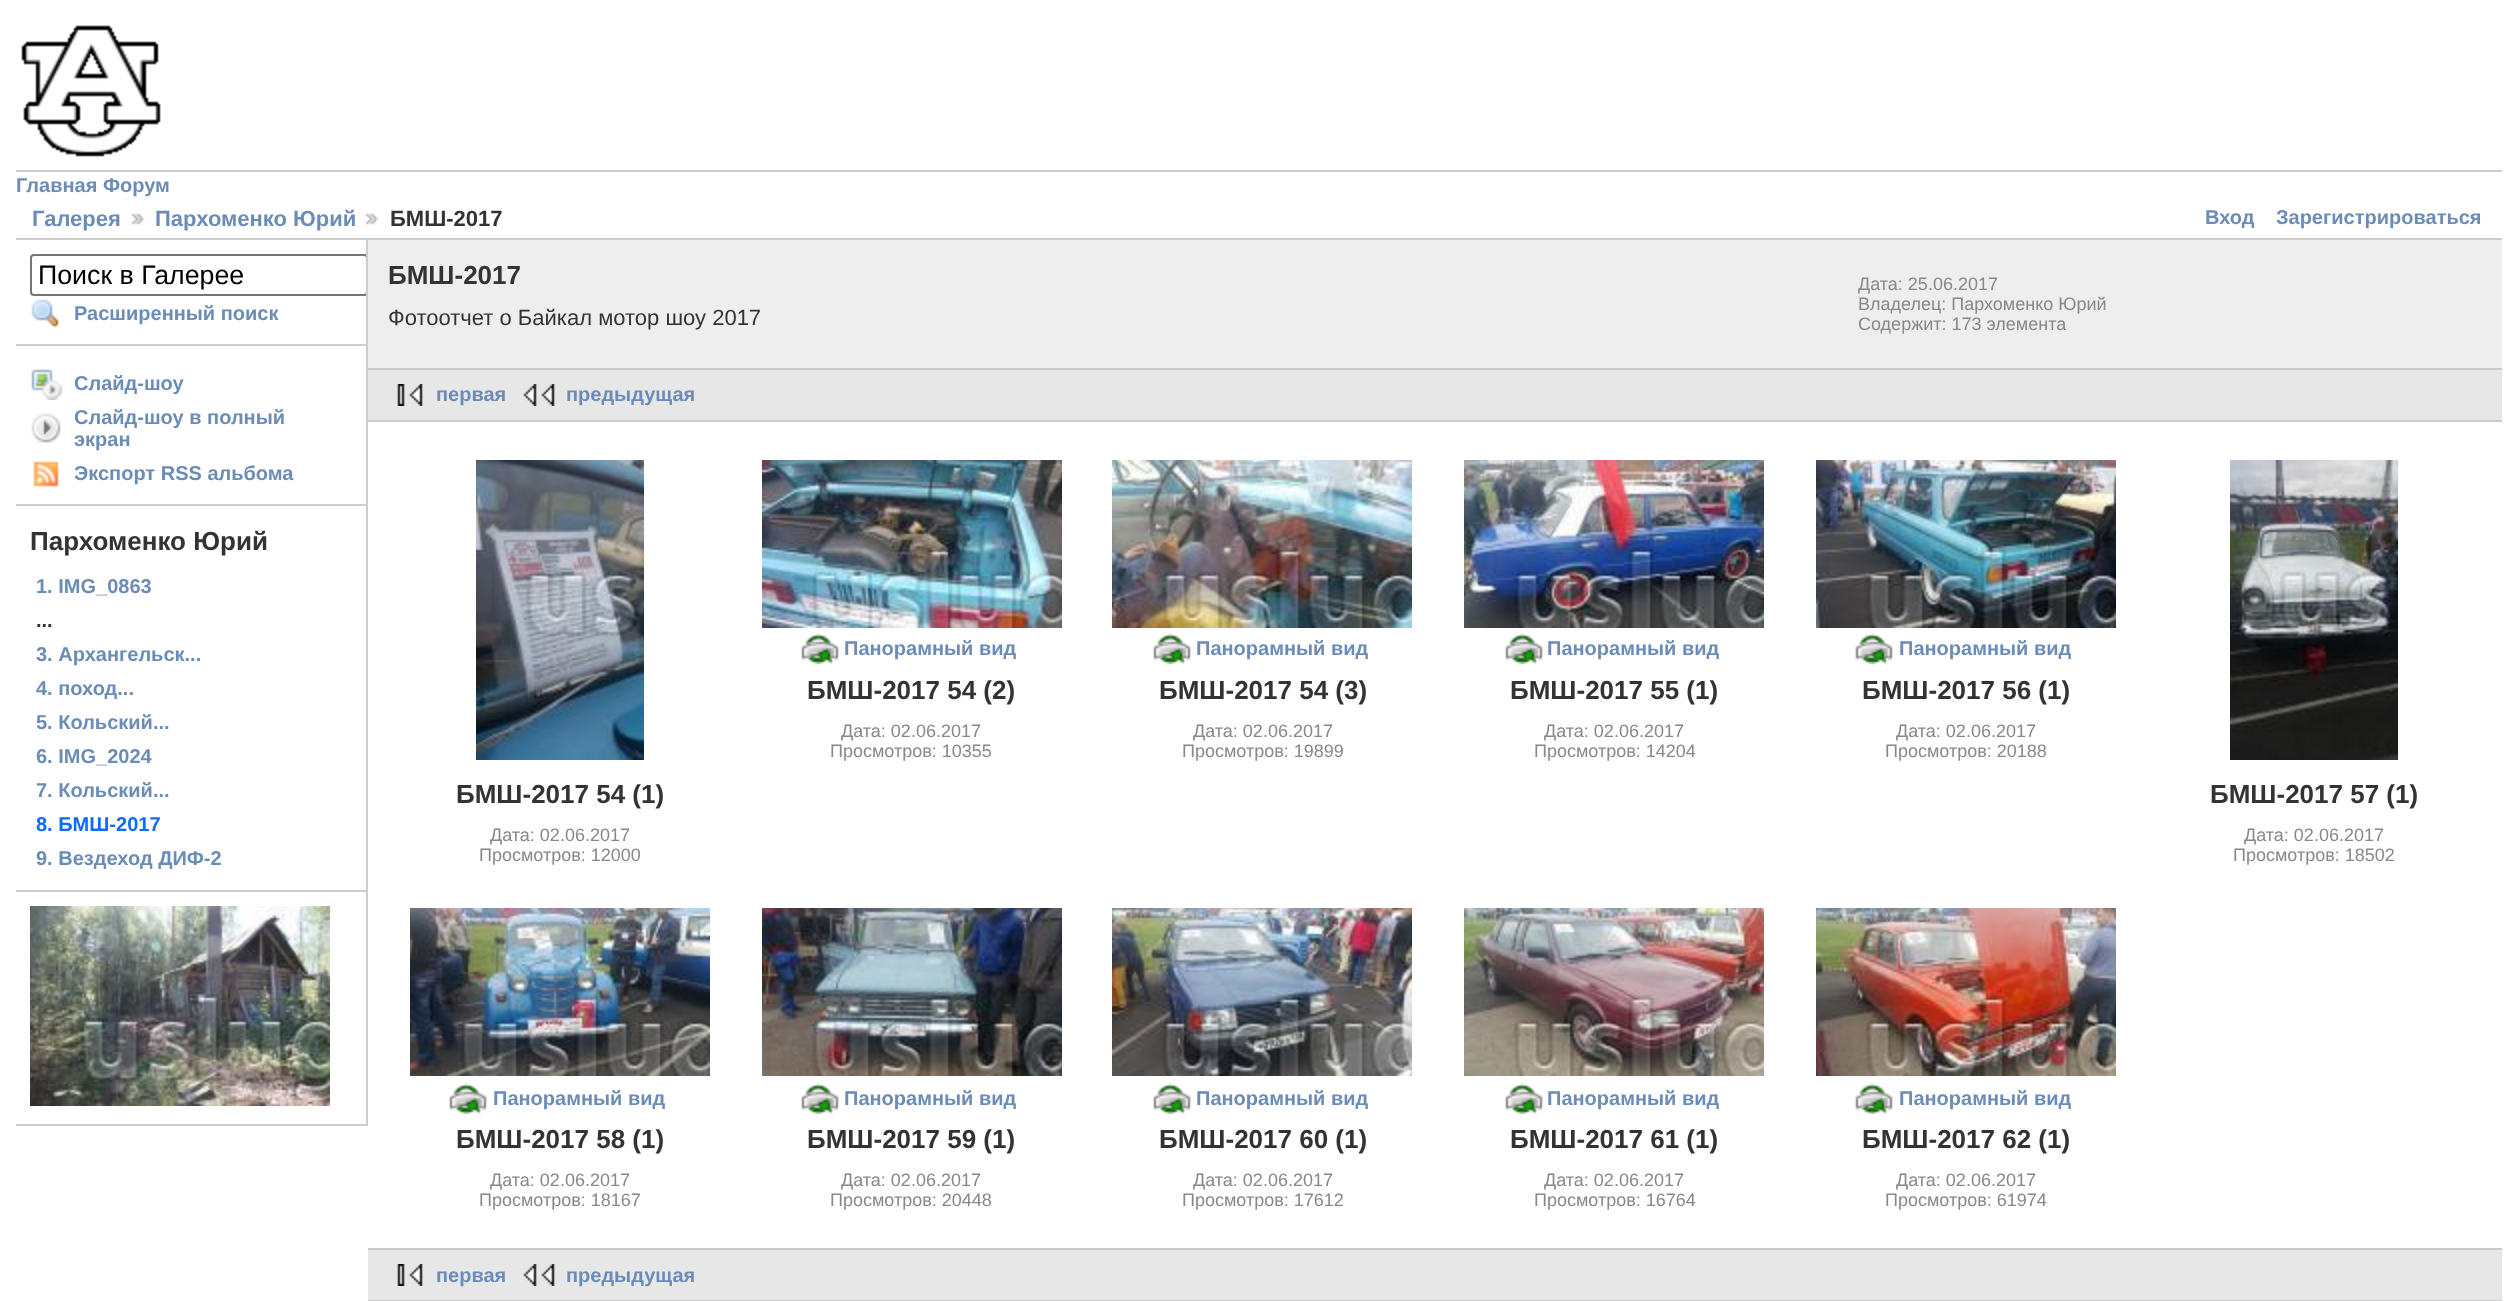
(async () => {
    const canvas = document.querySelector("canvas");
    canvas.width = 2517;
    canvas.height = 1301;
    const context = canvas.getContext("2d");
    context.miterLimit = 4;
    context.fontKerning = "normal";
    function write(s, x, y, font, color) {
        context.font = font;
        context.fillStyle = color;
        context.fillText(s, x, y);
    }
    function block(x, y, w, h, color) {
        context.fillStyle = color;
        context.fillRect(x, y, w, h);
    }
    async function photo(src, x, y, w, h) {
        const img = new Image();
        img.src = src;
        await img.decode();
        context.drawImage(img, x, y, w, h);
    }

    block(0, 0, 2517, 1301, "rgb(255, 255, 255)");
    await photo("media/1.png", 21, 25, 140, 132);
    block(16, 170, 2486, 2, "rgb(204, 204, 204)");
    block(16, 238, 2486, 2, "rgb(204, 204, 204)");
    write("Главная Форум", 16, 192, "bold 20px Liberation Sans", "rgb(107, 140, 183)");
    write("Галерея", 32, 226, "bold 22px Liberation Sans", "rgb(107, 140, 183)");
    await photo("media/2.png", 131, 213, 14, 12);
    write("Пархоменко Юрий", 155, 226, "bold 22px Liberation Sans", "rgb(107, 140, 183)");
    await photo("media/2.png", 365, 213, 14, 12);
    write("БМШ-2017", 390, 226, "bold 22px Liberation Sans", "rgb(51, 51, 51)");
    write("Вход", 2205, 224, "bold 20px Liberation Sans", "rgb(107, 140, 183)");
    write("Зарегистрироваться", 2276, 224, "bold 20px Liberation Sans", "rgb(107, 140, 183)");
    block(366, 240, 2, 886, "rgb(204, 204, 204)");
    block(16, 344, 350, 2, "rgb(204, 204, 204)");
    context.save();
    context.beginPath();
    context.rect(16, 240, 350, 886);
    context.clip();
    context.beginPath();
    context.roundRect(31, 255, 336, 40, 3);
    context.strokeStyle = "rgb(118, 118, 118)";
    context.lineWidth = 2;
    context.stroke();
    context.restore();
    write("Поиск в Галерее", 38, 284, "26.75px Liberation Sans", "rgb(0, 0, 0)");
    await photo("media/3.png", 31, 299, 28, 29);
    write("Расширенный поиск", 74, 320, "bold 20px Liberation Sans", "rgb(107, 140, 183)");
    block(16, 504, 350, 2, "rgb(204, 204, 204)");
    await photo("media/4.png", 31, 369, 31, 31);
    write("Слайд-шоу", 74, 390, "bold 20px Liberation Sans", "rgb(107, 140, 183)");
    await photo("media/5.png", 31, 413, 30, 30);
    write("Слайд-шоу в полный", 74, 424, "bold 20px Liberation Sans", "rgb(107, 140, 183)");
    write("экран", 74, 446, "bold 20px Liberation Sans", "rgb(107, 140, 183)");
    await photo("media/6.png", 33, 461, 26, 26);
    write("Экспорт RSS альбома", 74, 480, "bold 20px Liberation Sans", "rgb(107, 140, 183)");
    block(16, 890, 350, 2, "rgb(204, 204, 204)");
    write("Пархоменко Юрий", 30, 550, "bold 26px Liberation Sans", "rgb(51, 51, 51)");
    write("1. IMG_0863", 36, 593, "bold 20px Liberation Sans", "rgb(107, 140, 183)");
    write("...", 36, 627, "bold 20px Liberation Sans", "rgb(51, 51, 51)");
    write("3. Архангельск...", 36, 661, "bold 20px Liberation Sans", "rgb(107, 140, 183)");
    write("4. поход...", 36, 695, "bold 20px Liberation Sans", "rgb(107, 140, 183)");
    write("5. Кольский...", 36, 729, "bold 20px Liberation Sans", "rgb(107, 140, 183)");
    write("6. IMG_2024", 36, 763, "bold 20px Liberation Sans", "rgb(107, 140, 183)");
    write("7. Кольский...", 36, 797, "bold 20px Liberation Sans", "rgb(107, 140, 183)");
    write("8. БМШ-2017", 36, 831, "bold 20px Liberation Sans", "rgb(11, 108, 255)");
    write("9. Вездеход ДИФ-2", 36, 865, "bold 20px Liberation Sans", "rgb(107, 140, 183)");
    block(16, 1124, 350, 2, "rgb(204, 204, 204)");
    await photo("media/7.png", 30, 906, 300, 200);
    block(368, 240, 2134, 128, "rgb(238, 238, 238)");
    block(368, 368, 2134, 2, "rgb(204, 204, 204)");
    write("БМШ-2017", 388, 284, "bold 26px Liberation Sans", "rgb(51, 51, 51)");
    write("Фотоотчет о Байкал мотор шоу 2017", 388, 325, "22px Liberation Sans", "rgb(51, 51, 51)");
    write("Дата: 25.06.2017", 1858, 290, "18px Liberation Sans", "rgb(136, 136, 136)");
    write("Владелец: Пархоменко Юрий", 1858, 310, "18px Liberation Sans", "rgb(136, 136, 136)");
    write("Содержит: 173 элемента", 1858, 330, "18px Liberation Sans", "rgb(136, 136, 136)");
    block(368, 370, 2134, 50, "rgb(231, 231, 231)");
    block(368, 420, 2134, 2, "rgb(204, 204, 204)");
    await photo("media/8.png", 397, 384, 26, 22);
    write("первая", 436, 401, "bold 20px Liberation Sans", "rgb(107, 140, 183)");
    await photo("media/9.png", 523, 384, 32, 22);
    write("предыдущая", 566, 401, "bold 20px Liberation Sans", "rgb(107, 140, 183)");
    block(368, 1248, 2134, 2, "rgb(204, 204, 204)");
    await photo("media/10.png", 762, 460, 300, 168);
    await photo("media/11.png", 801, 633, 38, 31);
    write("Панорамный вид", 844, 655, "bold 20px Liberation Sans", "rgb(107, 140, 183)");
    write("БМШ-2017 54 (2)", 807, 699, "bold 26px Liberation Sans", "rgb(51, 51, 51)");
    write("Дата: 02.06.2017", 841, 737, "18px Liberation Sans", "rgb(136, 136, 136)");
    write("Просмотров: 10355", 830, 757, "18px Liberation Sans", "rgb(136, 136, 136)");
    await photo("media/12.png", 1112, 460, 300, 168);
    await photo("media/11.png", 1153, 633, 38, 31);
    write("Панорамный вид", 1196, 655, "bold 20px Liberation Sans", "rgb(107, 140, 183)");
    write("БМШ-2017 54 (3)", 1159, 699, "bold 26px Liberation Sans", "rgb(51, 51, 51)");
    write("Дата: 02.06.2017", 1193, 737, "18px Liberation Sans", "rgb(136, 136, 136)");
    write("Просмотров: 19899", 1182, 757, "18px Liberation Sans", "rgb(136, 136, 136)");
    await photo("media/13.png", 1464, 460, 300, 168);
    await photo("media/11.png", 1505, 633, 38, 31);
    write("Панорамный вид", 1547, 655, "bold 20px Liberation Sans", "rgb(107, 140, 183)");
    write("БМШ-2017 55 (1)", 1510, 699, "bold 26px Liberation Sans", "rgb(51, 51, 51)");
    write("Дата: 02.06.2017", 1544, 737, "18px Liberation Sans", "rgb(136, 136, 136)");
    write("Просмотров: 14204", 1534, 757, "18px Liberation Sans", "rgb(136, 136, 136)");
    await photo("media/14.png", 1816, 460, 300, 168);
    await photo("media/11.png", 1855, 633, 38, 31);
    write("Панорамный вид", 1899, 655, "bold 20px Liberation Sans", "rgb(107, 140, 183)");
    write("БМШ-2017 56 (1)", 1862, 699, "bold 26px Liberation Sans", "rgb(51, 51, 51)");
    write("Дата: 02.06.2017", 1896, 737, "18px Liberation Sans", "rgb(136, 136, 136)");
    write("Просмотров: 20188", 1885, 757, "18px Liberation Sans", "rgb(136, 136, 136)");
    await photo("media/15.png", 476, 460, 168, 300);
    write("БМШ-2017 54 (1)", 456, 803, "bold 26px Liberation Sans", "rgb(51, 51, 51)");
    write("Дата: 02.06.2017", 490, 841, "18px Liberation Sans", "rgb(136, 136, 136)");
    write("Просмотров: 12000", 479, 861, "18px Liberation Sans", "rgb(136, 136, 136)");
    await photo("media/16.png", 2230, 460, 168, 300);
    write("БМШ-2017 57 (1)", 2210, 803, "bold 26px Liberation Sans", "rgb(51, 51, 51)");
    write("Дата: 02.06.2017", 2244, 841, "18px Liberation Sans", "rgb(136, 136, 136)");
    write("Просмотров: 18502", 2233, 861, "18px Liberation Sans", "rgb(136, 136, 136)");
    await photo("media/17.png", 410, 908, 300, 168);
    await photo("media/11.png", 449, 1083, 38, 31);
    write("Панорамный вид", 493, 1105, "bold 20px Liberation Sans", "rgb(107, 140, 183)");
    write("БМШ-2017 58 (1)", 456, 1148, "bold 26px Liberation Sans", "rgb(51, 51, 51)");
    write("Дата: 02.06.2017", 490, 1186, "18px Liberation Sans", "rgb(136, 136, 136)");
    write("Просмотров: 18167", 479, 1206, "18px Liberation Sans", "rgb(136, 136, 136)");
    await photo("media/18.png", 762, 908, 300, 168);
    await photo("media/11.png", 801, 1083, 38, 31);
    write("Панорамный вид", 844, 1105, "bold 20px Liberation Sans", "rgb(107, 140, 183)");
    write("БМШ-2017 59 (1)", 807, 1148, "bold 26px Liberation Sans", "rgb(51, 51, 51)");
    write("Дата: 02.06.2017", 841, 1186, "18px Liberation Sans", "rgb(136, 136, 136)");
    write("Просмотров: 20448", 830, 1206, "18px Liberation Sans", "rgb(136, 136, 136)");
    await photo("media/19.png", 1112, 908, 300, 168);
    await photo("media/11.png", 1153, 1083, 38, 31);
    write("Панорамный вид", 1196, 1105, "bold 20px Liberation Sans", "rgb(107, 140, 183)");
    write("БМШ-2017 60 (1)", 1159, 1148, "bold 26px Liberation Sans", "rgb(51, 51, 51)");
    write("Дата: 02.06.2017", 1193, 1186, "18px Liberation Sans", "rgb(136, 136, 136)");
    write("Просмотров: 17612", 1182, 1206, "18px Liberation Sans", "rgb(136, 136, 136)");
    await photo("media/20.png", 1464, 908, 300, 168);
    await photo("media/11.png", 1505, 1083, 38, 31);
    write("Панорамный вид", 1547, 1105, "bold 20px Liberation Sans", "rgb(107, 140, 183)");
    write("БМШ-2017 61 (1)", 1510, 1148, "bold 26px Liberation Sans", "rgb(51, 51, 51)");
    write("Дата: 02.06.2017", 1544, 1186, "18px Liberation Sans", "rgb(136, 136, 136)");
    write("Просмотров: 16764", 1534, 1206, "18px Liberation Sans", "rgb(136, 136, 136)");
    await photo("media/21.png", 1816, 908, 300, 168);
    await photo("media/11.png", 1855, 1083, 38, 31);
    write("Панорамный вид", 1899, 1105, "bold 20px Liberation Sans", "rgb(107, 140, 183)");
    write("БМШ-2017 62 (1)", 1862, 1148, "bold 26px Liberation Sans", "rgb(51, 51, 51)");
    write("Дата: 02.06.2017", 1896, 1186, "18px Liberation Sans", "rgb(136, 136, 136)");
    write("Просмотров: 61974", 1885, 1206, "18px Liberation Sans", "rgb(136, 136, 136)");
    block(368, 1250, 2134, 50, "rgb(231, 231, 231)");
    block(368, 1300, 2134, 1, "rgb(204, 204, 204)");
    await photo("media/8.png", 397, 1264, 26, 22);
    write("первая", 436, 1282, "bold 20px Liberation Sans", "rgb(107, 140, 183)");
    await photo("media/9.png", 523, 1264, 32, 22);
    write("предыдущая", 566, 1282, "bold 20px Liberation Sans", "rgb(107, 140, 183)");
})();
